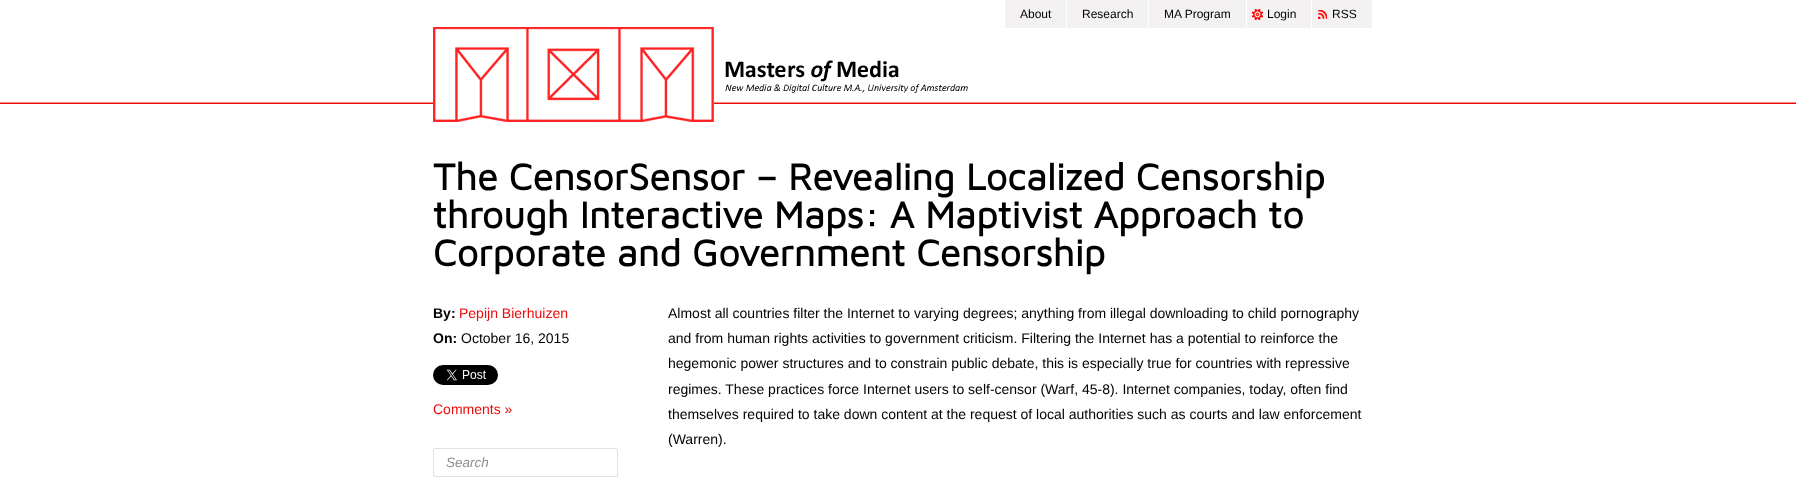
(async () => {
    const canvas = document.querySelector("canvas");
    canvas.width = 1796;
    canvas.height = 479;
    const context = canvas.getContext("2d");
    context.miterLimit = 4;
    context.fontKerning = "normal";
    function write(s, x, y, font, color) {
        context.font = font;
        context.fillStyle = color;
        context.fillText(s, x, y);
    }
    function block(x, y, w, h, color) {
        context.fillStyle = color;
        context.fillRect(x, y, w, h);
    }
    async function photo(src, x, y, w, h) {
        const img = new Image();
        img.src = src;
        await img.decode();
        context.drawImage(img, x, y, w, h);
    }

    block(0, 0, 1796, 479, "rgb(255, 255, 255)");
    block(1005, 0, 61, 28, "rgb(243, 241, 241)");
    write("About", 1020, 18, "12px Liberation Sans", "rgb(0, 0, 0)");
    block(1067, 0, 81, 28, "rgb(243, 241, 241)");
    write("Research", 1082, 18, "12px Liberation Sans", "rgb(0, 0, 0)");
    block(1149, 0, 97, 28, "rgb(243, 241, 241)");
    write("MA Program", 1164, 18, "12px Liberation Sans", "rgb(0, 0, 0)");
    block(1247, 0, 64, 28, "rgb(243, 241, 241)");
    await photo("media/1.png", 1252, 9, 11, 11);
    write("Login", 1267, 18, "12px Liberation Sans", "rgb(0, 0, 0)");
    block(1312, 0, 60, 28, "rgb(243, 241, 241)");
    await photo("media/2.png", 1318, 10, 9, 9);
    write("RSS", 1332, 18, "12px Liberation Sans", "rgb(0, 0, 0)");
    await photo("media/3.png", 0, 102, 1796, 2);
    await photo("media/4.png", 433, 27, 535, 95);
    write("The CensorSensor – Revealing Localized Censorship", 433, 190, "bold 38px Maven Pro", "rgb(0, 0, 0)");
    write("through Interactive Maps: A Maptivist Approach to", 433, 228, "bold 38px Maven Pro", "rgb(0, 0, 0)");
    write("Corporate and Government Censorship", 433, 266, "bold 38px Maven Pro", "rgb(0, 0, 0)");
    write("By:", 433, 318, "bold 14px Liberation Sans", "rgb(0, 0, 0)");
    write("Pepijn Bierhuizen", 459, 318, "14px Liberation Sans", "rgb(234, 11, 11)");
    write("On:", 433, 343, "bold 14px Liberation Sans", "rgb(0, 0, 0)");
    write("October 16, 2015", 461, 343, "14px Liberation Sans", "rgb(0, 0, 0)");
    await photo("media/5.png", 433, 365, 65, 20);
    write("Comments »", 433, 414, "14px Liberation Sans", "rgb(234, 11, 11)");
    context.beginPath();
    context.roundRect(433.5, 448.5, 184, 28, 1.5);
    context.strokeStyle = "rgb(226, 224, 224)";
    context.stroke();
    write("Search", 446, 467, "italic 13.5px Liberation Sans", "rgb(143, 143, 143)");
    write("Almost all countries filter the Internet to varying degrees; anything from illegal downloading to child pornography", 668, 318, "14px Liberation Sans", "rgb(0, 0, 0)");
    write("and from human rights activities to government criticism. Filtering the Internet has a potential to reinforce the", 668, 343, "14px Liberation Sans", "rgb(0, 0, 0)");
    write("hegemonic power structures and to constrain public debate, this is especially true for countries with repressive", 668, 368, "14px Liberation Sans", "rgb(0, 0, 0)");
    write("regimes. These practices force Internet users to self-censor (Warf, 45-8). Internet companies, today, often find", 668, 394, "14px Liberation Sans", "rgb(0, 0, 0)");
    write("themselves required to take down content at the request of local authorities such as courts and law enforcement", 668, 419, "14px Liberation Sans", "rgb(0, 0, 0)");
    write("(Warren).", 668, 444, "14px Liberation Sans", "rgb(0, 0, 0)");
})();
